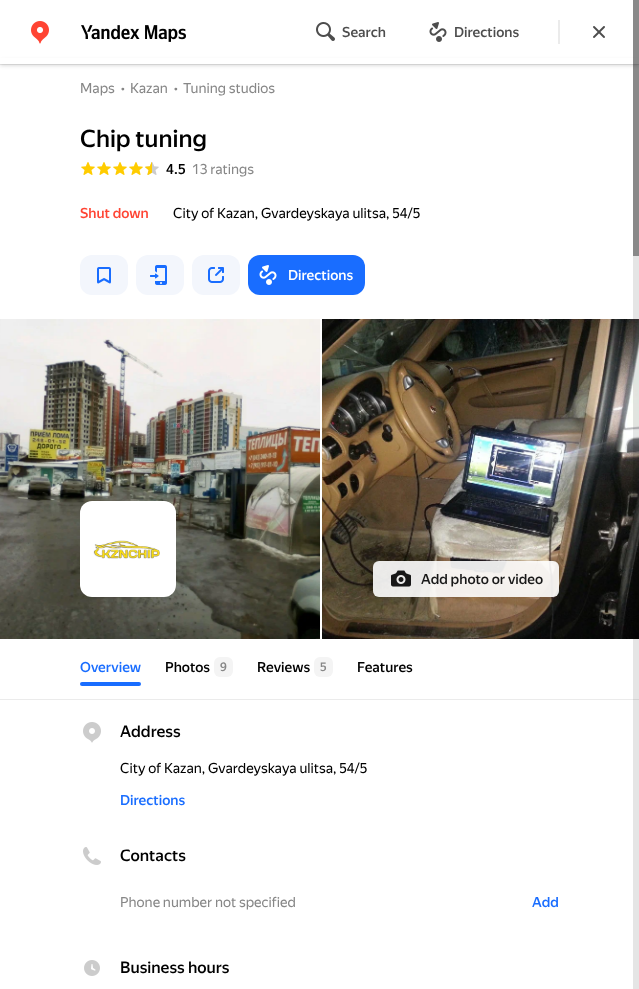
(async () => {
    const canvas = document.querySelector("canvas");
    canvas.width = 639;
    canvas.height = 989;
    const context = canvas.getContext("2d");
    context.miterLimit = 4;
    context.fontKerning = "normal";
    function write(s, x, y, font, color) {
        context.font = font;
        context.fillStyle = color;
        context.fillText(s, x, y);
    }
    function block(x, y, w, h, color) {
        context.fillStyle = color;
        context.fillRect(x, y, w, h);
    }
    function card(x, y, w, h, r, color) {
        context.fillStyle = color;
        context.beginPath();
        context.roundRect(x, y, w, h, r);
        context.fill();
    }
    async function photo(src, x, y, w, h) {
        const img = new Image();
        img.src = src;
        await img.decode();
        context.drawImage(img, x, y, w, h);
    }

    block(0, 0, 639, 989, "rgb(255, 255, 255)");
    block(0, 64, 639, 1, "rgb(235, 235, 235)");
    context.fillStyle = "rgba(0, 0, 0, 0.2)";
    context.filter = "blur(2px)";
    context.beginPath();
    context.rect(0, 61, 639, 4);
    context.fill();
    context.filter = "none";
    block(0, 58, 639, 6, "rgb(255, 255, 255)");
    await photo("media/1.png", 31, 21, 18, 23);
    await photo("media/2.png", 81, 25, 105, 17);
    await photo("media/3.png", 316, 22, 19, 19);
    write("Search", 342, 37, "500 14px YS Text", "rgb(77, 77, 77)");
    await photo("media/4.png", 429, 22, 18, 20);
    write("Directions", 454, 37, "500 14px YS Text", "rgb(77, 77, 77)");
    block(558, 20, 2, 24, "rgb(235, 235, 235)");
    await photo("media/5.png", 593, 26, 12, 12);
    write("Maps", 80, 93, "14px YS Text", "rgb(135, 135, 135)");
    write("•", 121, 93, "14px YS Text", "rgb(135, 135, 135)");
    write("Kazan", 130, 93, "14px YS Text", "rgb(135, 135, 135)");
    write("•", 174, 93, "14px YS Text", "rgb(135, 135, 135)");
    write("Tuning studios", 183, 93, "14px YS Text", "rgb(135, 135, 135)");
    write("Chip tuning", 80, 147, "500 24px YS Text", "rgb(0, 0, 0)");
    await photo("media/6.png", 81, 162, 14, 13);
    await photo("media/6.png", 97, 162, 14, 13);
    await photo("media/6.png", 113, 162, 14, 13);
    await photo("media/6.png", 129, 162, 14, 13);
    await photo("media/7.png", 145, 162, 14, 13);
    write("4.5", 166, 174, "500 14px YS Text", "rgb(0, 0, 0)");
    write("13 ratings", 192, 174, "14px YS Text", "rgb(135, 135, 135)");
    write("Shut down", 80, 218, "500 14px YS Text", "rgb(255, 68, 51)");
    write("City of Kazan, Gvardeyskaya ulitsa, 54/5", 173, 218, "14px YS Text", "rgb(0, 0, 0)");
    card(80, 255, 48, 40, 12, "rgb(243, 246, 252)");
    await photo("media/8.png", 97, 267, 14, 17);
    card(136, 255, 48, 40, 12, "rgb(243, 246, 252)");
    await photo("media/9.png", 150, 265, 17, 20);
    card(192, 255, 48, 40, 12, "rgb(243, 246, 252)");
    await photo("media/10.png", 208, 267, 16, 16);
    card(248, 255, 117, 40, 12, "rgb(25, 109, 255)");
    await photo("media/11.png", 259, 265, 18, 20);
    write("Directions", 288, 280, "500 14px YS Text", "rgb(255, 255, 255)");
    await photo("media/12.png", 0, 319, 320, 320);
    await photo("media/13.png", 322, 319, 317, 320);
    card(80, 501, 96, 96, 12, "rgb(255, 255, 255)");
    await photo("media/14.png", 93, 540, 67, 19);
    card(373, 561, 186, 36, 6, "rgba(255, 255, 255, 0.9)");
    await photo("media/15.png", 391, 570, 20, 17);
    write("Add photo or video", 421, 584, "500 14px YS Text", "rgb(24, 24, 24)");
    write("Overview", 80, 672, "500 14px YS Text", "rgb(25, 109, 255)");
    write("Photos", 165, 672, "500 14px YS Text", "rgb(0, 0, 0)");
    card(214, 657, 19, 20, 6, "rgb(244, 244, 244)");
    write("9", 220, 671, "500 12px YS Text", "rgb(135, 135, 135)");
    write("Reviews", 257, 672, "500 14px YS Text", "rgb(0, 0, 0)");
    card(314, 657, 19, 20, 6, "rgb(244, 244, 244)");
    write("5", 320, 671, "500 12px YS Text", "rgb(135, 135, 135)");
    write("Features", 357, 672, "500 14px YS Text", "rgb(0, 0, 0)");
    card(80, 682, 61, 4, 2, "rgb(25, 109, 255)");
    block(0, 699, 639, 1, "rgb(235, 235, 235)");
    await photo("media/16.png", 83, 722, 18, 21);
    write("Address", 120, 737, "500 16px YS Text", "rgb(0, 0, 0)");
    write("City of Kazan, Gvardeyskaya ulitsa, 54/5", 120, 773, "14px YS Text", "rgb(0, 0, 0)");
    write("Directions", 120, 805, "500 14px YS Text", "rgb(25, 109, 255)");
    await photo("media/17.png", 83, 847, 18, 18);
    write("Contacts", 120, 861, "500 16px YS Text", "rgb(0, 0, 0)");
    write("Phone number not specified", 120, 907, "14px YS Text", "rgb(135, 135, 135)");
    write("Add", 532, 907, "500 14px YS Text", "rgb(25, 109, 255)");
    await photo("media/18.png", 84, 960, 16, 16);
    write("Business hours", 120, 973, "500 16px YS Text", "rgb(0, 0, 0)");
    block(633, 0, 6, 989, "rgba(0, 0, 0, 0.1)");
    block(633, 0, 6, 256, "rgba(0, 0, 0, 0.4)");
})();
